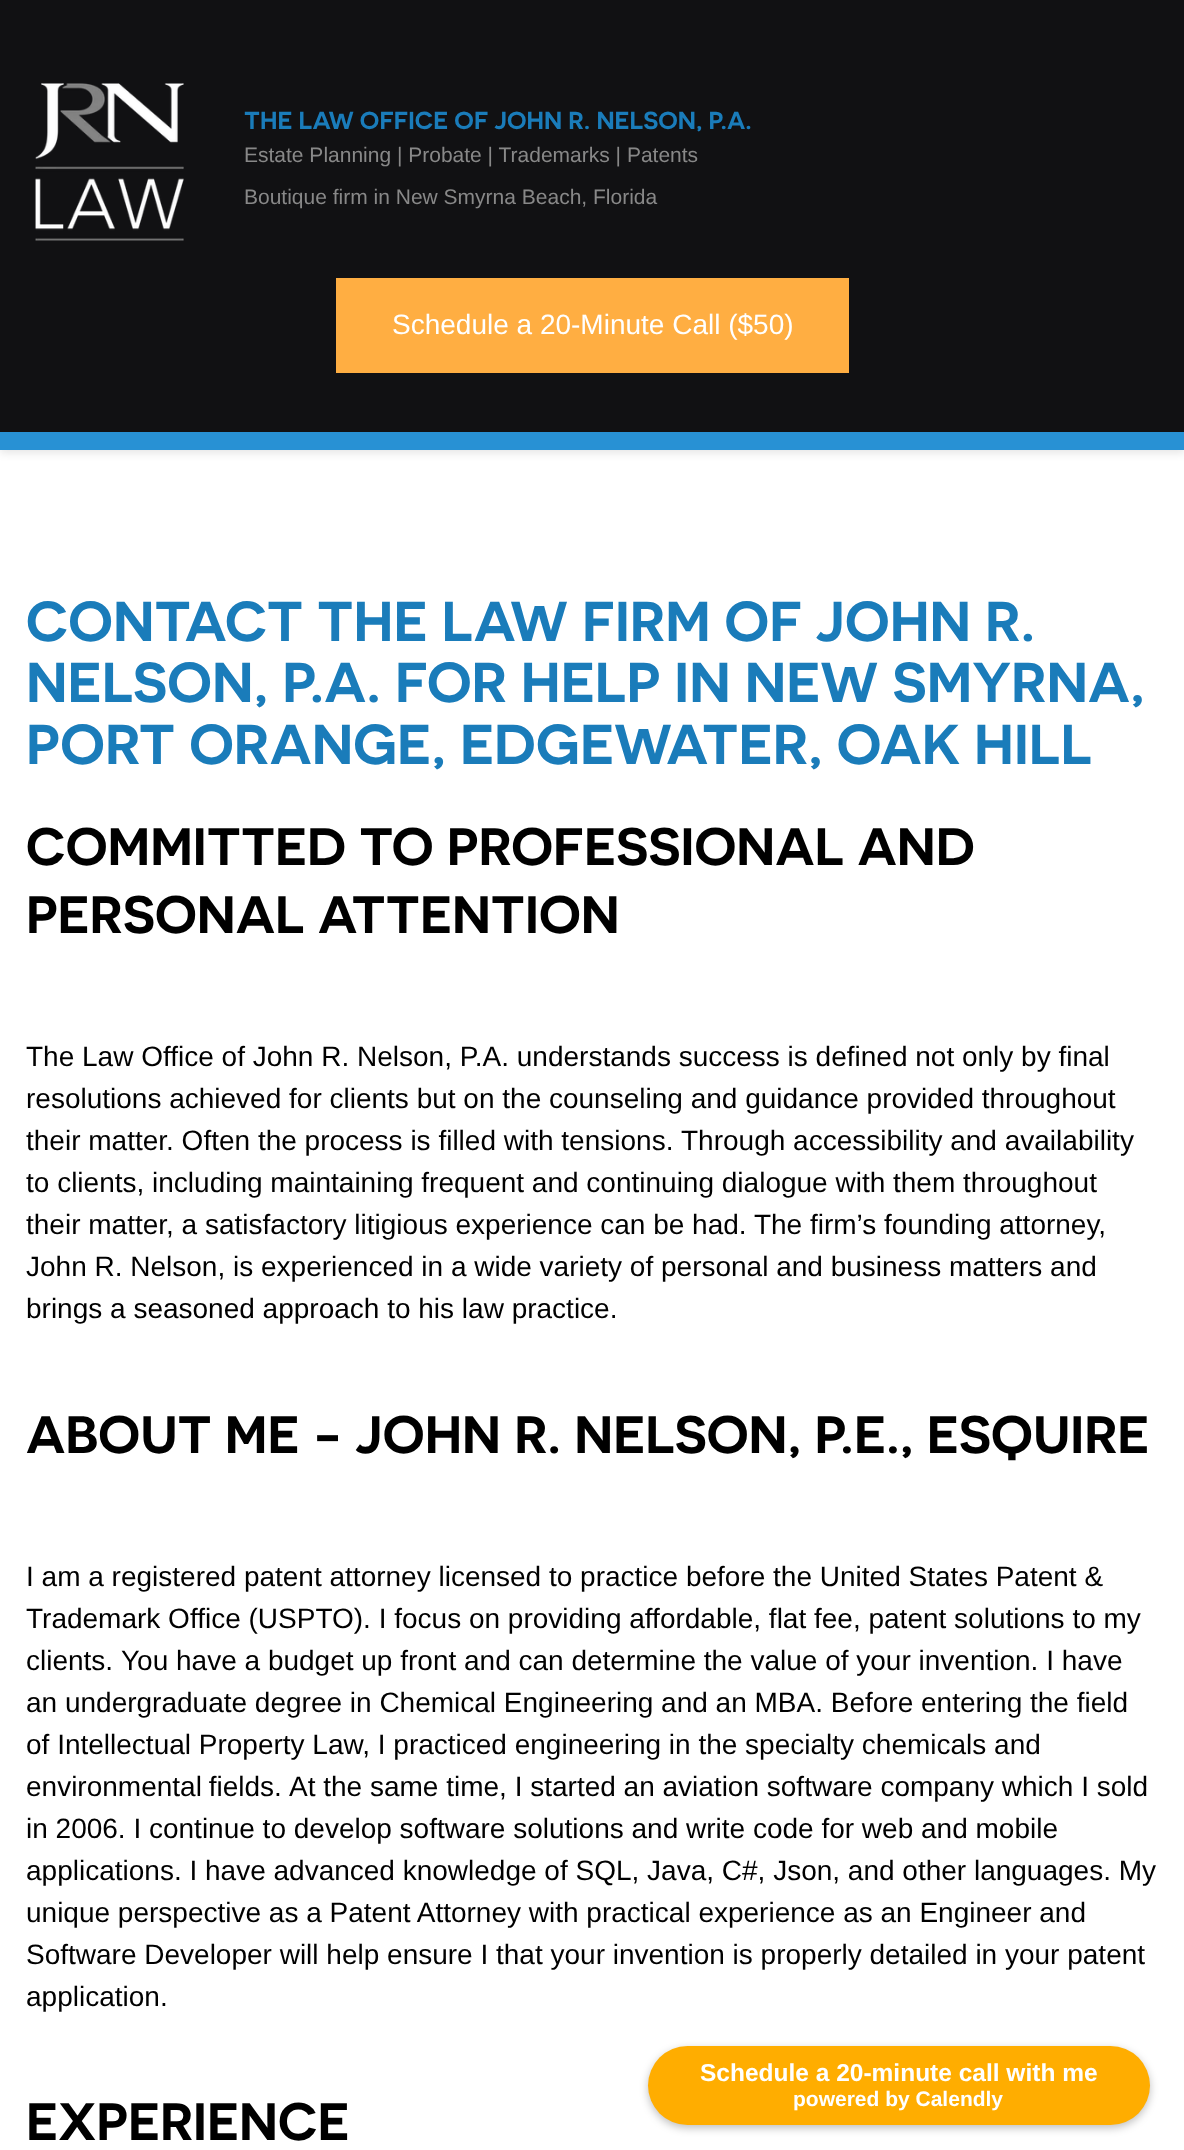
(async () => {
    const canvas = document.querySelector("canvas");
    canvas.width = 1184;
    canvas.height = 2150;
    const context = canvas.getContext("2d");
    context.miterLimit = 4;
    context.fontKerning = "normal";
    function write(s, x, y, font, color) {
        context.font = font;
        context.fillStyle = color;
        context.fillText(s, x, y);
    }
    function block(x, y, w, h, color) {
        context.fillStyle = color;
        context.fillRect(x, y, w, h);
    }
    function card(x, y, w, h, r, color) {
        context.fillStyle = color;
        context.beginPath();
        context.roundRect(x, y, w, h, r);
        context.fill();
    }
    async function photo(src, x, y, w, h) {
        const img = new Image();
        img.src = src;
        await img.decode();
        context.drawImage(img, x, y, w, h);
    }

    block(0, 0, 1184, 2150, "rgb(255, 255, 255)");
    context.fillStyle = "rgba(0, 0, 0, 0.1)";
    context.filter = "blur(4.5px)";
    context.beginPath();
    context.rect(0, 4, 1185, 449);
    context.fill();
    context.filter = "none";
    block(0, 0, 1184, 432, "rgb(17, 17, 19)");
    block(0, 432, 1184, 18, "rgb(40, 145, 212)");
    await photo("media/1.png", 35, 83, 149, 158);
    write("THE LAW OFFICE OF JOHN R. NELSON, P.A.", 244, 129, "600 24.5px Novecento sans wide", "rgb(26, 124, 186)");
    write("Estate Planning | Probate | Trademarks | Patents", 244, 162, "21px Liberation Sans", "rgb(136, 136, 136)");
    write("Boutique firm in New Smyrna Beach, Florida", 244, 204, "21px Liberation Sans", "rgb(136, 136, 136)");
    block(336, 278, 513, 95, "rgb(255, 174, 66)");
    write("Schedule a 20-Minute Call ($50)", 392, 334, "28px Liberation Sans", "rgb(255, 255, 255)");
    write("CONTACT THE LAW FIRM OF JOHN R.", 26, 641, "600 56px Novecento sans wide", "rgb(26, 124, 186)");
    write("NELSON, P.A. FOR HELP IN NEW SMYRNA,", 26, 702, "600 56px Novecento sans wide", "rgb(26, 124, 186)");
    write("PORT ORANGE, EDGEWATER, OAK HILL", 26, 764, "600 56px Novecento sans wide", "rgb(26, 124, 186)");
    write("COMMITTED TO PROFESSIONAL AND", 26, 865, "600 52.5px Novecento sans wide", "rgb(0, 0, 0)");
    write("PERSONAL ATTENTION", 26, 933, "600 52.5px Novecento sans wide", "rgb(0, 0, 0)");
    write("The Law Office of John R. Nelson, P.A. understands success is defined not only by final", 26, 1066, "28px Liberation Sans", "rgb(0, 0, 0)");
    write("resolutions achieved for clients but on the counseling and guidance provided throughout", 26, 1108, "28px Liberation Sans", "rgb(0, 0, 0)");
    write("their matter. Often the process is filled with tensions.", 26, 1150, "28px Liberation Sans", "rgb(0, 0, 0)");
    write("Through accessibility and availability", 681, 1150, "28px Liberation Sans", "rgb(0, 0, 0)");
    write("to clients, including maintaining frequent and continuing dialogue with them throughout", 26, 1192, "28px Liberation Sans", "rgb(0, 0, 0)");
    write("their matter, a satisfactory litigious experience can be had. The firm’s founding attorney,", 26, 1234, "28px Liberation Sans", "rgb(0, 0, 0)");
    write("John R. Nelson, is experienced in a wide variety of personal and business matters and", 26, 1276, "28px Liberation Sans", "rgb(0, 0, 0)");
    write("brings a seasoned approach to his law practice.", 26, 1318, "28px Liberation Sans", "rgb(0, 0, 0)");
    write("ABOUT ME - JOHN R. NELSON, P.E., ESQUIRE", 26, 1453, "600 52.5px Novecento sans wide", "rgb(0, 0, 0)");
    write("I am a registered patent attorney licensed to practice before the United States Patent &", 26, 1586, "28px Liberation Sans", "rgb(0, 0, 0)");
    write("Trademark Office (USPTO). I focus on providing affordable, flat fee, patent solutions to my", 26, 1628, "28px Liberation Sans", "rgb(0, 0, 0)");
    write("clients.", 26, 1670, "28px Liberation Sans", "rgb(0, 0, 0)");
    write("You have a budget up front and can determine the value of your invention. I have", 121, 1670, "28px Liberation Sans", "rgb(0, 0, 0)");
    write("an undergraduate degree in Chemical Engineering and an MBA. Before entering the field", 26, 1712, "28px Liberation Sans", "rgb(0, 0, 0)");
    write("of Intellectual Property Law, I practiced engineering in the specialty chemicals and", 26, 1754, "28px Liberation Sans", "rgb(0, 0, 0)");
    context.wordSpacing = "-1px";
    write("environmental fields.", 26, 1796, "28px Liberation Sans", "rgb(0, 0, 0)");
    context.wordSpacing = "0px";
    write("At the same time, I started an aviation software company which I sold", 289, 1796, "28px Liberation Sans", "rgb(0, 0, 0)");
    write("in 2006. I continue to develop software solutions and write code for web and mobile", 26, 1838, "28px Liberation Sans", "rgb(0, 0, 0)");
    write("applications. I have advanced knowledge of SQL, Java, C#, Json, and other languages. My", 26, 1880, "28px Liberation Sans", "rgb(0, 0, 0)");
    write("unique perspective as a Patent Attorney with practical experience as an Engineer and", 26, 1922, "28px Liberation Sans", "rgb(0, 0, 0)");
    write("Software Developer will help ensure I that your invention is properly detailed in your patent", 26, 1964, "28px Liberation Sans", "rgb(0, 0, 0)");
    write("application.", 26, 2006, "28px Liberation Sans", "rgb(0, 0, 0)");
    write("EXPERIENCE", 26, 2140, "600 52.5px Novecento sans wide", "rgb(0, 0, 0)");
    context.fillStyle = "rgba(0, 0, 0, 0.25)";
    context.filter = "blur(4.5px)";
    context.beginPath();
    context.roundRect(648, 2049, 502, 79, 39.5);
    context.fill();
    context.filter = "none";
    card(648, 2046, 502, 79, 39.5, "rgb(255, 173, 0)");
    write("Schedule a 20-minute call with me", 700, 2081, "bold 24.5px Liberation Sans", "rgb(255, 255, 255)");
    write("powered by Calendly", 793, 2106, "bold 21px Liberation Sans", "rgb(255, 255, 255)");
})();
